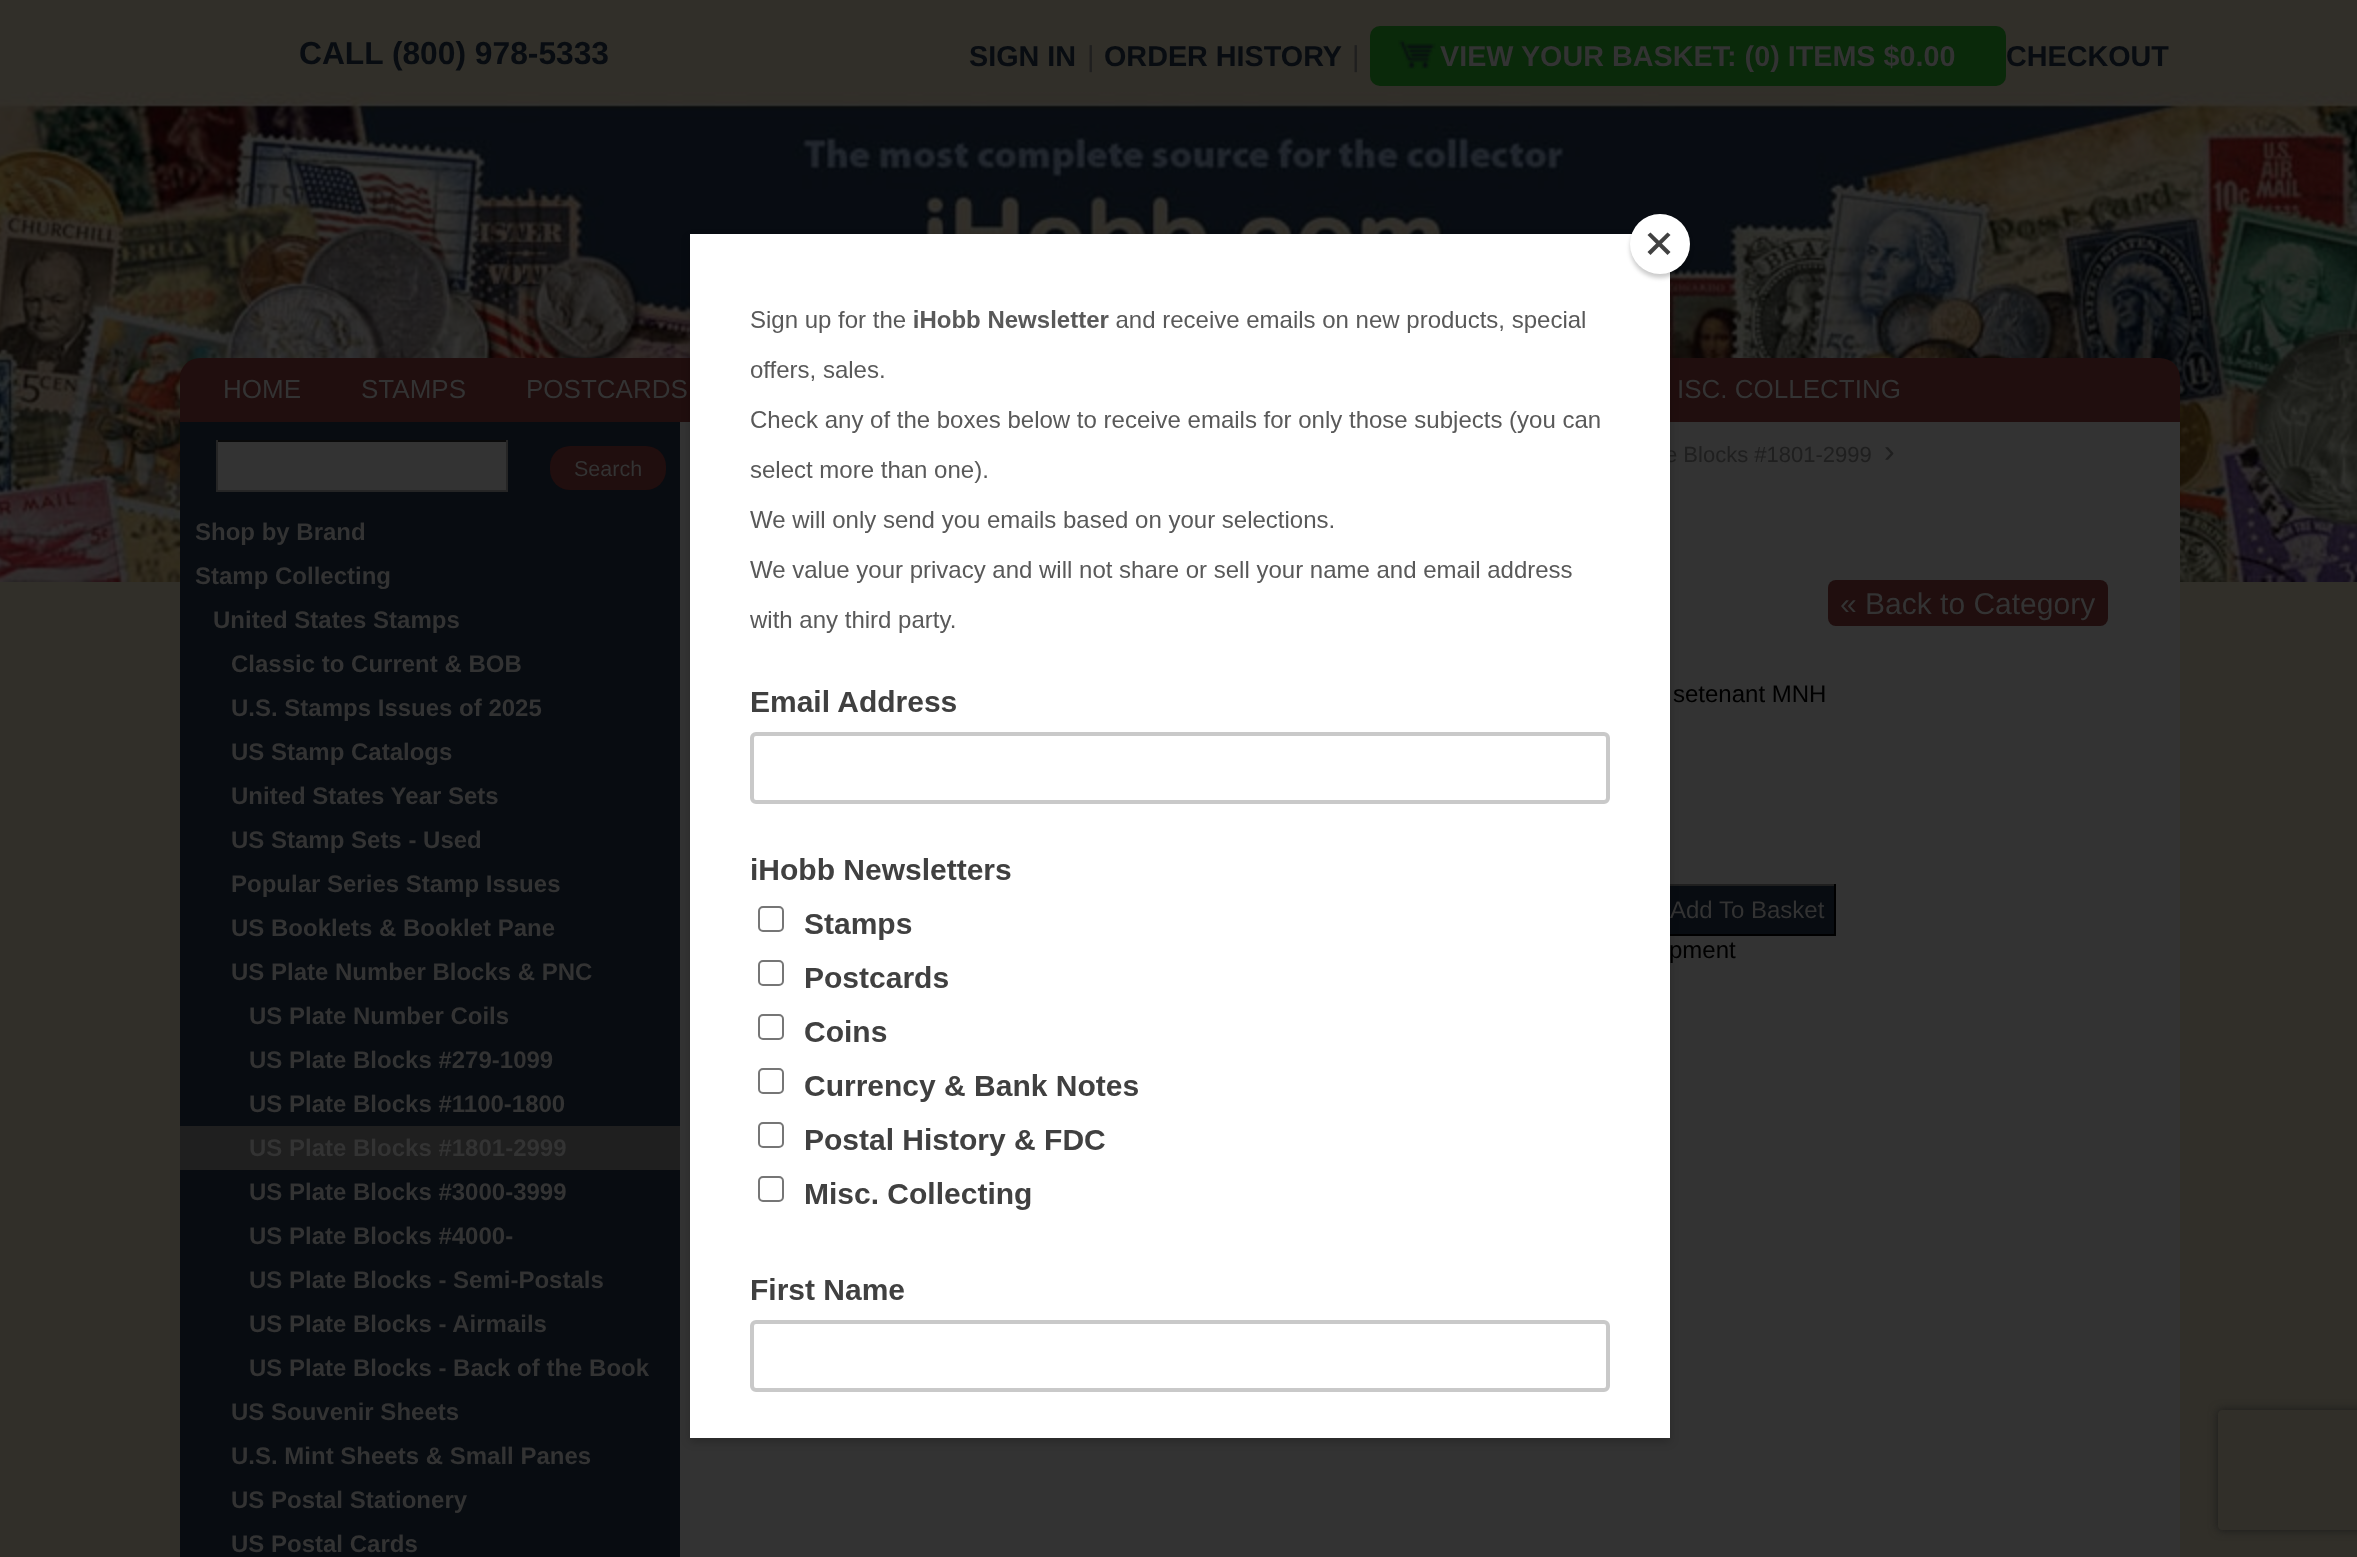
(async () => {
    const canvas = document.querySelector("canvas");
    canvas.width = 2357;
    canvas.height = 1557;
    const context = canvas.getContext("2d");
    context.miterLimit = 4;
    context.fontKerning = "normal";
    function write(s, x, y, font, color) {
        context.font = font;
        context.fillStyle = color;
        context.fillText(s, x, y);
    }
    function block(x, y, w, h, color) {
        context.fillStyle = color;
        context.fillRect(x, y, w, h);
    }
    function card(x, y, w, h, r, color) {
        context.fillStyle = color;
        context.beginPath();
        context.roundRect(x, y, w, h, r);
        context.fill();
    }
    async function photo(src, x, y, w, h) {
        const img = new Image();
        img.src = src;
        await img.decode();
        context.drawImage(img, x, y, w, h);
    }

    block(0, 0, 2357, 1557, "rgb(49, 47, 41)");
    await photo("media/1.png", 0, 92, 2357, 490);
    write("CALL (800) 978-5333", 299, 64, "bold 31.75px Liberation Sans", "rgb(8, 12, 17)");
    write("SIGN IN", 969, 66, "bold 28.75px Liberation Sans", "rgb(8, 12, 17)");
    write("|", 1087, 66, "28.75px Liberation Sans", "rgb(31, 31, 31)");
    write("ORDER HISTORY", 1104, 66, "bold 28.75px Liberation Sans", "rgb(8, 12, 17)");
    write("|", 1352, 66, "28.75px Liberation Sans", "rgb(31, 31, 31)");
    card(1370, 26, 636, 60, 10, "rgb(10, 41, 10)");
    await photo("media/2.png", 1398, 40, 38, 29);
    write("VIEW YOUR BASKET: (0) ITEMS $0.00", 1440, 66, "bold 28.75px Liberation Sans", "rgb(51, 51, 51)");
    write("CHECKOUT", 2006, 66, "bold 28.75px Liberation Sans", "rgb(8, 12, 17)");
    context.fillStyle = "rgb(32, 14, 14)";
    context.beginPath();
    context.roundRect(180, 358, 2000, 64, [20, 20, 0, 0]);
    context.fill();
    write("HOME", 223, 398, "26px Liberation Sans", "rgb(51, 51, 51)");
    write("STAMPS", 361, 398, "26px Liberation Sans", "rgb(51, 51, 51)");
    write("POSTCARDS", 526, 398, "26px Liberation Sans", "rgb(51, 51, 51)");
    write("ISC. COLLECTING", 1677, 398, "26px Liberation Sans", "rgb(51, 51, 51)");
    block(680, 422, 1500, 1135, "rgb(51, 51, 51)");
    block(180, 422, 500, 1135, "rgb(8, 12, 17)");
    block(218, 442, 288, 48, "rgb(51, 51, 51)");
    block(216, 440, 292, 2, "rgb(10, 10, 10)");
    block(506, 440, 2, 52, "rgb(37, 37, 37)");
    block(216, 490, 292, 2, "rgb(37, 37, 37)");
    block(216, 440, 2, 52, "rgb(37, 37, 37)");
    card(550, 446, 116, 44, 20, "rgb(32, 14, 14)");
    write("Search", 574, 476, "21.5px Liberation Sans", "rgb(51, 51, 51)");
    write("Shop by Brand", 195, 540, "bold 24px Liberation Sans", "rgb(51, 51, 51)");
    write("Stamp Collecting", 195, 584, "bold 24px Liberation Sans", "rgb(51, 51, 51)");
    write("United States Stamps", 213, 628, "bold 24px Liberation Sans", "rgb(51, 51, 51)");
    write("Classic to Current & BOB", 231, 672, "bold 24px Liberation Sans", "rgb(51, 51, 51)");
    write("U.S. Stamps Issues of 2025", 231, 716, "bold 24px Liberation Sans", "rgb(51, 51, 51)");
    write("US Stamp Catalogs", 231, 760, "bold 24px Liberation Sans", "rgb(51, 51, 51)");
    write("United States Year Sets", 231, 804, "bold 24px Liberation Sans", "rgb(51, 51, 51)");
    write("US Stamp Sets - Used", 231, 848, "bold 24px Liberation Sans", "rgb(51, 51, 51)");
    write("Popular Series Stamp Issues", 231, 892, "bold 24px Liberation Sans", "rgb(51, 51, 51)");
    write("US Booklets & Booklet Pane", 231, 936, "bold 24px Liberation Sans", "rgb(51, 51, 51)");
    write("US Plate Number Blocks & PNC", 231, 980, "bold 24px Liberation Sans", "rgb(51, 51, 51)");
    write("US Plate Number Coils", 249, 1024, "bold 24px Liberation Sans", "rgb(51, 51, 51)");
    write("US Plate Blocks #279-1099", 249, 1068, "bold 24px Liberation Sans", "rgb(51, 51, 51)");
    write("US Plate Blocks #1100-1800", 249, 1112, "bold 24px Liberation Sans", "rgb(51, 51, 51)");
    block(180, 1126, 500, 44, "rgb(31, 31, 31)");
    write("US Plate Blocks #1801-2999", 249, 1156, "bold 24px Liberation Sans", "rgb(51, 51, 51)");
    write("US Plate Blocks #3000-3999", 249, 1200, "bold 24px Liberation Sans", "rgb(51, 51, 51)");
    write("US Plate Blocks #4000-", 249, 1244, "bold 24px Liberation Sans", "rgb(51, 51, 51)");
    write("US Plate Blocks - Semi-Postals", 249, 1288, "bold 24px Liberation Sans", "rgb(51, 51, 51)");
    write("US Plate Blocks - Airmails", 249, 1332, "bold 24px Liberation Sans", "rgb(51, 51, 51)");
    write("US Plate Blocks - Back of the Book", 249, 1376, "bold 24px Liberation Sans", "rgb(51, 51, 51)");
    write("US Souvenir Sheets", 231, 1420, "bold 24px Liberation Sans", "rgb(51, 51, 51)");
    write("U.S. Mint Sheets & Small Panes", 231, 1464, "bold 24px Liberation Sans", "rgb(51, 51, 51)");
    write("US Postal Stationery", 231, 1508, "bold 24px Liberation Sans", "rgb(51, 51, 51)");
    write("US Postal Cards", 231, 1552, "bold 24px Liberation Sans", "rgb(51, 51, 51)");
    write("e Blocks #1801-2999", 1665, 462, "22px Liberation Sans", "rgb(31, 31, 31)");
    write("›", 1884, 462, "32px Liberation Sans", "rgb(31, 31, 31)");
    card(1828, 580, 280, 46, 8, "rgb(32, 14, 14)");
    write("« Back to Category", 1840, 614, "30px Liberation Sans", "rgb(51, 51, 51)");
    write("setenant MNH", 1673, 702, "24px Liberation Sans", "rgb(0, 0, 0)");
    block(1670, 886, 164, 48, "rgb(8, 12, 17)");
    block(1670, 884, 166, 2, "rgb(31, 31, 31)");
    block(1834, 884, 2, 52, "rgb(0, 0, 0)");
    block(1670, 934, 166, 2, "rgb(0, 0, 0)");
    write("Add To Basket", 1670, 918, "24px Liberation Sans", "rgb(51, 51, 51)");
    write("pment", 1669, 958, "24px Liberation Sans", "rgb(0, 0, 0)");
    context.fillStyle = "rgba(0, 0, 0, 0.2)";
    context.filter = "blur(4px)";
    context.beginPath();
    context.rect(690, 238, 980, 1204);
    context.fill();
    context.filter = "none";
    await photo("media/3.png", 690, 234, 980, 1204);
    context.filter = "blur(2px)";
    context.beginPath();
    context.roundRect(1630, 218, 60, 60, 30);
    context.fill();
    context.filter = "none";
    context.fillStyle = "rgb(255, 255, 255)";
    context.beginPath();
    context.arc(1660, 244, 30, 0, Math.PI * 2);
    context.fill();
    context.fillStyle = "rgb(65, 65, 65)";
    context.beginPath();
    context.moveTo(1667.5, 232.5);
    context.lineTo(1670.5, 235);
    context.lineTo(1650.5, 255);
    context.lineTo(1647.5, 252);
    context.closePath();
    context.fill();
    context.beginPath();
    context.moveTo(1647.5, 235);
    context.lineTo(1650.5, 232.5);
    context.lineTo(1670.5, 252);
    context.lineTo(1667.5, 255);
    context.closePath();
    context.fill();
    context.save();
    context.beginPath();
    context.moveTo(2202, 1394);
    context.lineTo(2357, 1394);
    context.lineTo(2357, 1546);
    context.lineTo(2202, 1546);
    context.closePath();
    context.moveTo(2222, 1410);
    context.lineTo(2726, 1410);
    context.bezierCurveTo(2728, 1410, 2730, 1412, 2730, 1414);
    context.lineTo(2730, 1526);
    context.bezierCurveTo(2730, 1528, 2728, 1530, 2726, 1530);
    context.lineTo(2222, 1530);
    context.bezierCurveTo(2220, 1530, 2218, 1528, 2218, 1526);
    context.lineTo(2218, 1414);
    context.bezierCurveTo(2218, 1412, 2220, 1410, 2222, 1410);
    context.closePath();
    context.clip("evenodd");
    context.fillStyle = "rgb(26, 26, 26)";
    context.filter = "blur(5px)";
    context.beginPath();
    context.roundRect(2218, 1410, 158, 120, 4);
    context.fill();
    context.filter = "none";
    context.restore();
})();
